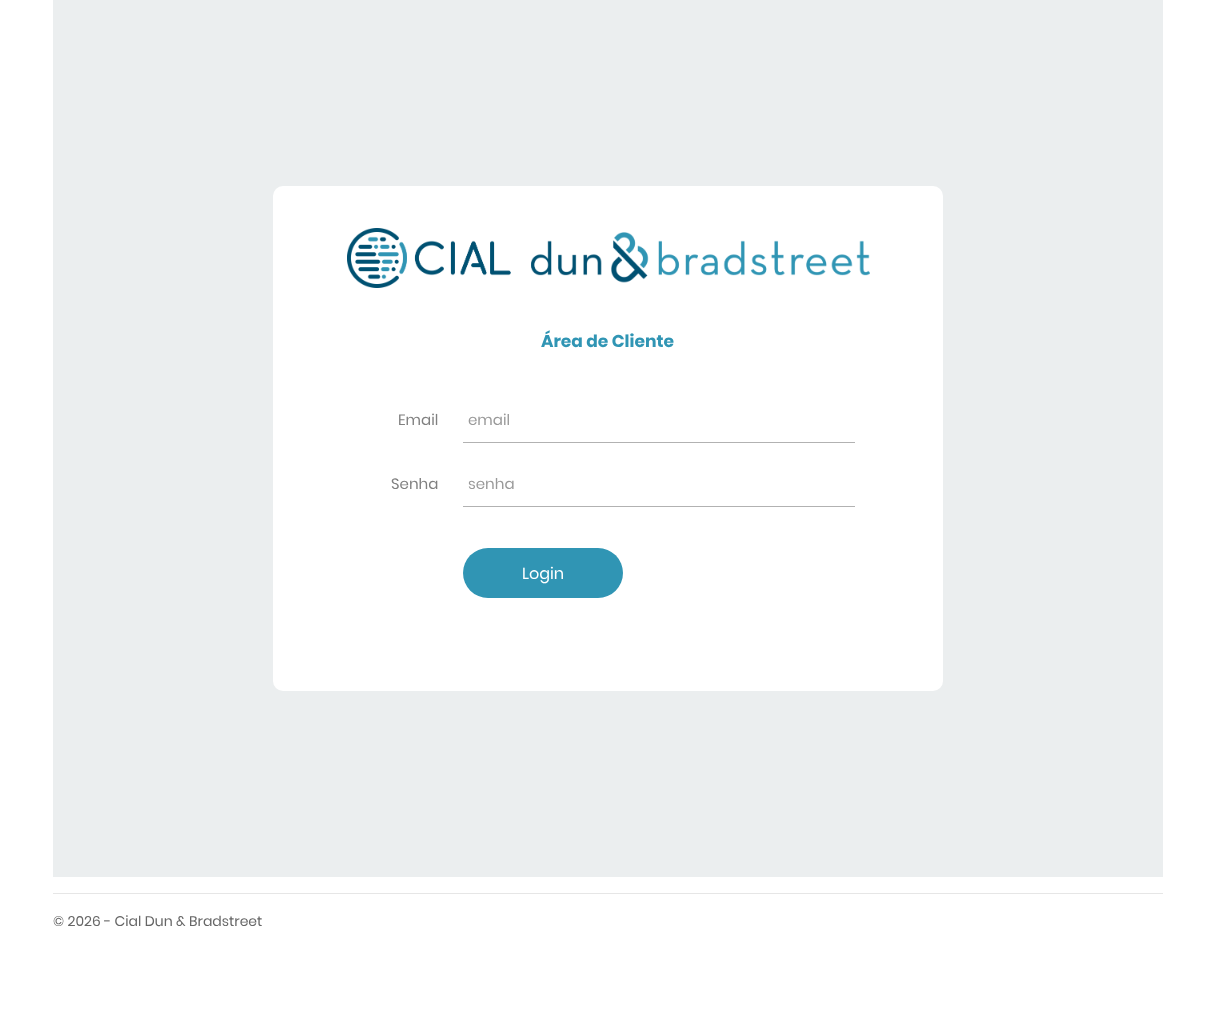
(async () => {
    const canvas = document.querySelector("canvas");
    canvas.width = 1216;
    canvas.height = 1032;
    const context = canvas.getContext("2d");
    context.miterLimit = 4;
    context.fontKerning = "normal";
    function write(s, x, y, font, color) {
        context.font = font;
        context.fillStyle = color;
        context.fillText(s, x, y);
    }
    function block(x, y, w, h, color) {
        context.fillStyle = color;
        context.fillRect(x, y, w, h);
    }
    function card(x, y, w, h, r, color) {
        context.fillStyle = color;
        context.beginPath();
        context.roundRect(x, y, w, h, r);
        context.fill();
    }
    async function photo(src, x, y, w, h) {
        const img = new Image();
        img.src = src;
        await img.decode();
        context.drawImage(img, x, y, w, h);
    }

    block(0, 0, 1216, 1032, "rgb(255, 255, 255)");
    block(53, 0, 1110, 877, "rgb(235, 238, 239)");
    card(273, 186, 670, 505, 10, "rgb(255, 255, 255)");
    await photo("media/1.png", 347, 228, 523, 60);
    write("Área de Cliente", 541, 347, "bold 17px Poppins", "rgb(48, 149, 180)");
    block(463, 442, 392, 1, "rgb(178, 178, 178)");
    write("Email", 398, 425, "15px Poppins", "rgb(128, 128, 128)");
    write("email", 468, 425, "15px Poppins", "rgb(153, 153, 153)");
    block(463, 506, 392, 1, "rgb(178, 178, 178)");
    write("Senha", 391, 489, "15px Poppins", "rgb(128, 128, 128)");
    write("senha", 468, 489, "15px Poppins", "rgb(153, 153, 153)");
    card(463, 548, 160, 50, 25, "rgb(48, 149, 180)");
    write("Login", 522, 579, "16px Poppins", "rgb(255, 255, 255)");
    block(53, 893, 1110, 1, "rgb(230, 230, 230)");
    write("© 2026 - Cial Dun & Bradstreet", 53, 926, "14px Poppins", "rgb(102, 102, 102)");
})();
